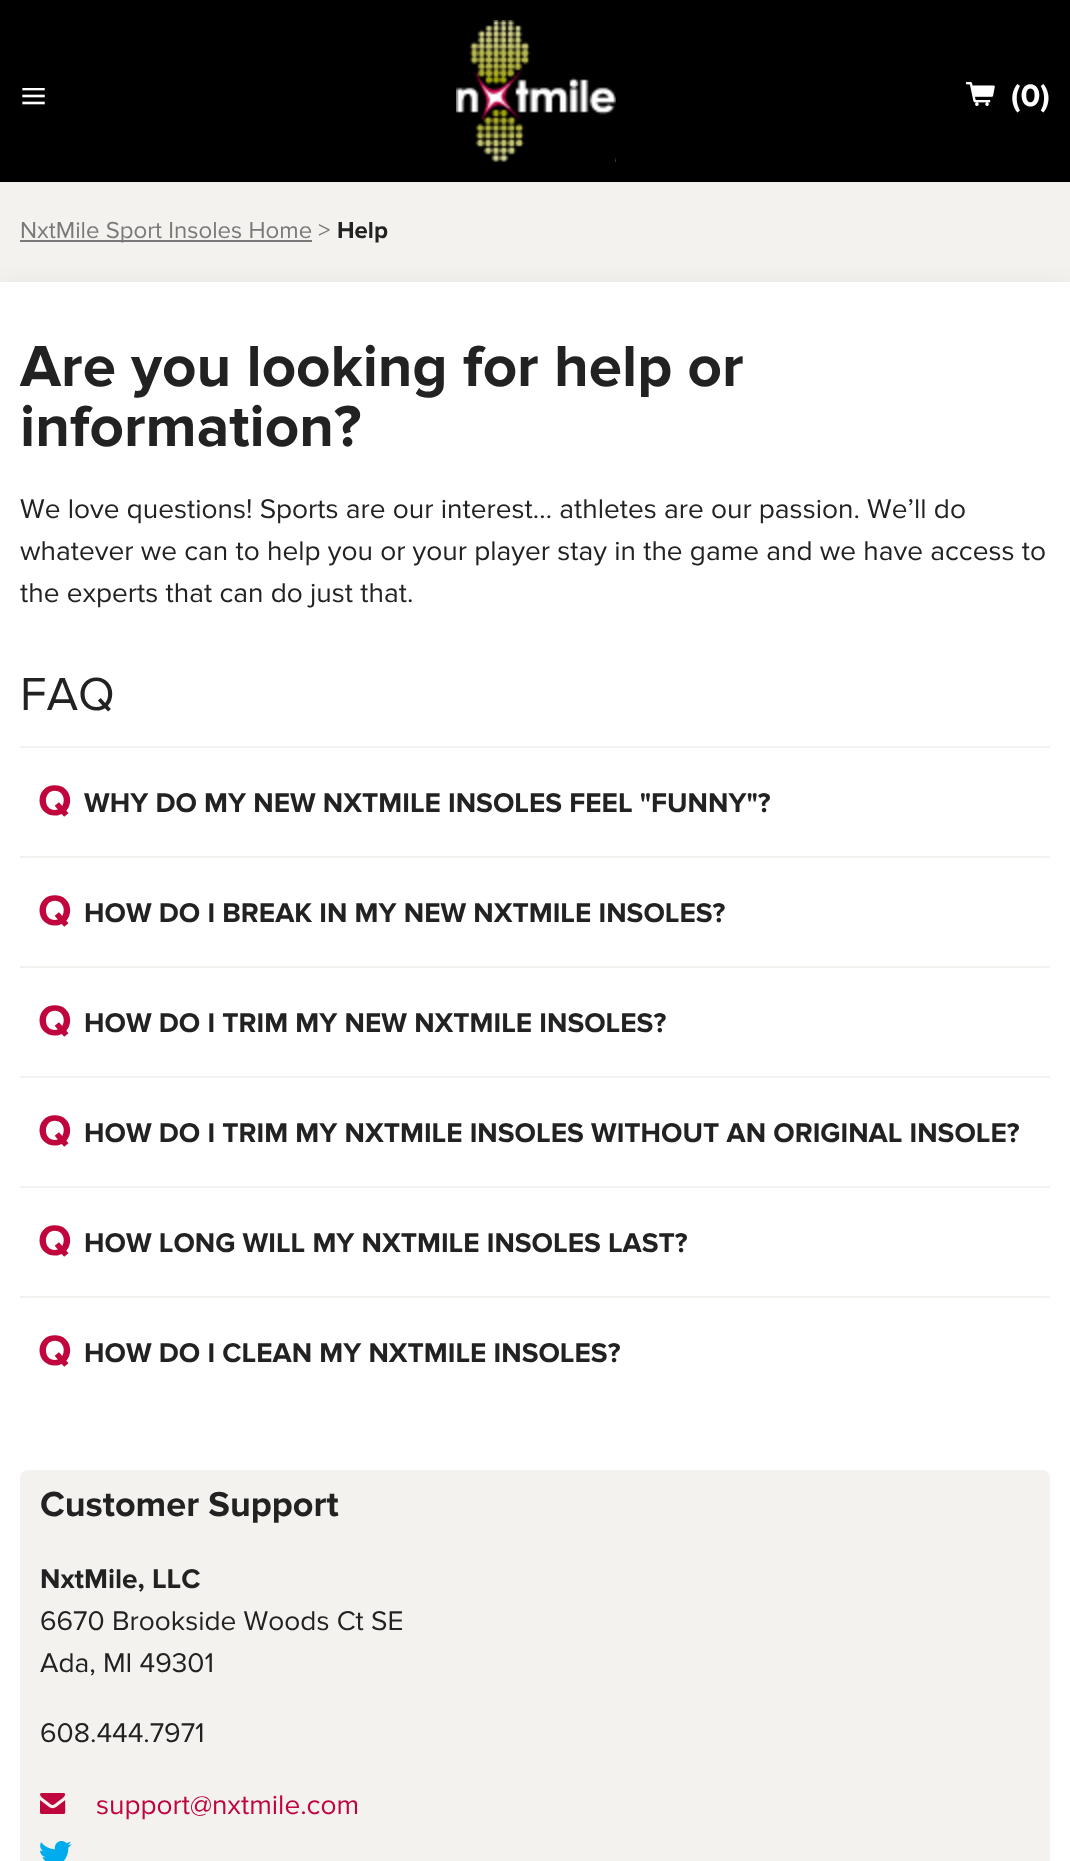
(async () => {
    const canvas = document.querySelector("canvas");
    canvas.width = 1070;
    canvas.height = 1861;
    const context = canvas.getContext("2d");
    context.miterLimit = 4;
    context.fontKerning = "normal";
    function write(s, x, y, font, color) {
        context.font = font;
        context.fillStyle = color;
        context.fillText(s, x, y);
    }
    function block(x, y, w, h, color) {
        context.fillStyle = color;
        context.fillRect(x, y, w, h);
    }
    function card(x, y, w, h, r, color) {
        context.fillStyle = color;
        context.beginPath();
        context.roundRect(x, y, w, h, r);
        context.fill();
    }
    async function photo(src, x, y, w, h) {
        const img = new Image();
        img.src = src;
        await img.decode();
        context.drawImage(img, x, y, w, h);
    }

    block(0, 0, 1070, 1861, "rgb(243, 242, 239)");
    block(0, 0, 1070, 182, "rgb(0, 0, 0)");
    write("≡", 20, 112, "48px Liberation Serif", "rgb(255, 255, 255)");
    await photo("media/1.png", 456, 20, 160, 142);
    await photo("media/2.png", 966, 82, 29, 24);
    write("(0)", 1011, 106, "bold 32px Proxima Nova", "rgb(255, 255, 255)");
    block(20, 240, 292, 2, "rgb(121, 121, 121)");
    write("NxtMile Sport Insoles Home >", 20, 238, "24px Proxima Nova", "rgb(121, 121, 121)");
    write("Help", 337, 238, "bold 24px Proxima Nova", "rgb(34, 34, 34)");
    context.fillStyle = "rgba(0, 0, 0, 0.05)";
    context.filter = "blur(10px)";
    context.beginPath();
    context.rect(0, 282, 1070, 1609);
    context.fill();
    context.filter = "none";
    block(0, 282, 1070, 1579, "rgb(255, 255, 255)");
    write("Are you looking for help or", 20, 386, "bold 60px Proxima Nova", "rgb(34, 34, 34)");
    write("information?", 20, 446, "bold 60px Proxima Nova", "rgb(34, 34, 34)");
    write("We love questions! Sports are our interest… athletes are our passion. We’ll do", 20, 518, "28px Proxima Nova", "rgb(34, 34, 34)");
    write("whatever we can to help you or your player stay in the game and we have access to", 20, 560, "28px Proxima Nova", "rgb(34, 34, 34)");
    write("the experts that can do just that.", 20, 602, "28px Proxima Nova", "rgb(34, 34, 34)");
    write("FAQ", 20, 710, "48px Proxima Nova", "rgb(34, 34, 34)");
    block(20, 746, 1030, 2, "rgb(243, 242, 239)");
    write("Q", 38, 815, "bold 44px Proxima Nova", "rgb(192, 5, 60)");
    write("WHY DO MY NEW NXTMILE INSOLES FEEL \"FUNNY\"?", 84, 812, "bold 28px Proxima Nova", "rgb(34, 34, 34)");
    block(20, 856, 1030, 2, "rgb(243, 242, 239)");
    write("Q", 38, 925, "bold 44px Proxima Nova", "rgb(192, 5, 60)");
    write("HOW DO I BREAK IN MY NEW NXTMILE INSOLES?", 84, 922, "bold 28px Proxima Nova", "rgb(34, 34, 34)");
    block(20, 966, 1030, 2, "rgb(243, 242, 239)");
    write("Q", 38, 1035, "bold 44px Proxima Nova", "rgb(192, 5, 60)");
    write("HOW DO I TRIM MY NEW NXTMILE INSOLES?", 84, 1032, "bold 28px Proxima Nova", "rgb(34, 34, 34)");
    block(20, 1076, 1030, 2, "rgb(243, 242, 239)");
    write("Q", 38, 1145, "bold 44px Proxima Nova", "rgb(192, 5, 60)");
    write("HOW DO I TRIM MY NXTMILE INSOLES WITHOUT AN ORIGINAL INSOLE?", 84, 1142, "bold 28px Proxima Nova", "rgb(34, 34, 34)");
    block(20, 1186, 1030, 2, "rgb(243, 242, 239)");
    write("Q", 38, 1255, "bold 44px Proxima Nova", "rgb(192, 5, 60)");
    write("HOW LONG WILL MY NXTMILE INSOLES LAST?", 84, 1252, "bold 28px Proxima Nova", "rgb(34, 34, 34)");
    block(20, 1296, 1030, 2, "rgb(243, 242, 239)");
    write("Q", 38, 1365, "bold 44px Proxima Nova", "rgb(192, 5, 60)");
    write("HOW DO I CLEAN MY NXTMILE INSOLES?", 84, 1362, "bold 28px Proxima Nova", "rgb(34, 34, 34)");
    card(20, 1470, 1030, 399, 8, "rgb(243, 242, 239)");
    write("Customer Support", 40, 1516, "bold 36px Proxima Nova", "rgb(34, 34, 34)");
    write("NxtMile, LLC", 40, 1588, "bold 28px Proxima Nova", "rgb(34, 34, 34)");
    write("6670 Brookside Woods Ct SE", 40, 1630, "28px Proxima Nova", "rgb(34, 34, 34)");
    write("Ada, MI 49301", 40, 1672, "28px Proxima Nova", "rgb(34, 34, 34)");
    write("608.444.7971", 40, 1742, "28px Proxima Nova", "rgb(34, 34, 34)");
    await photo("media/3.png", 40, 1793, 26, 21);
    write("support@nxtmile.com", 96, 1814, "28px Proxima Nova", "rgb(192, 5, 60)");
    await photo("media/4.png", 40, 1841, 32, 20);
})();
